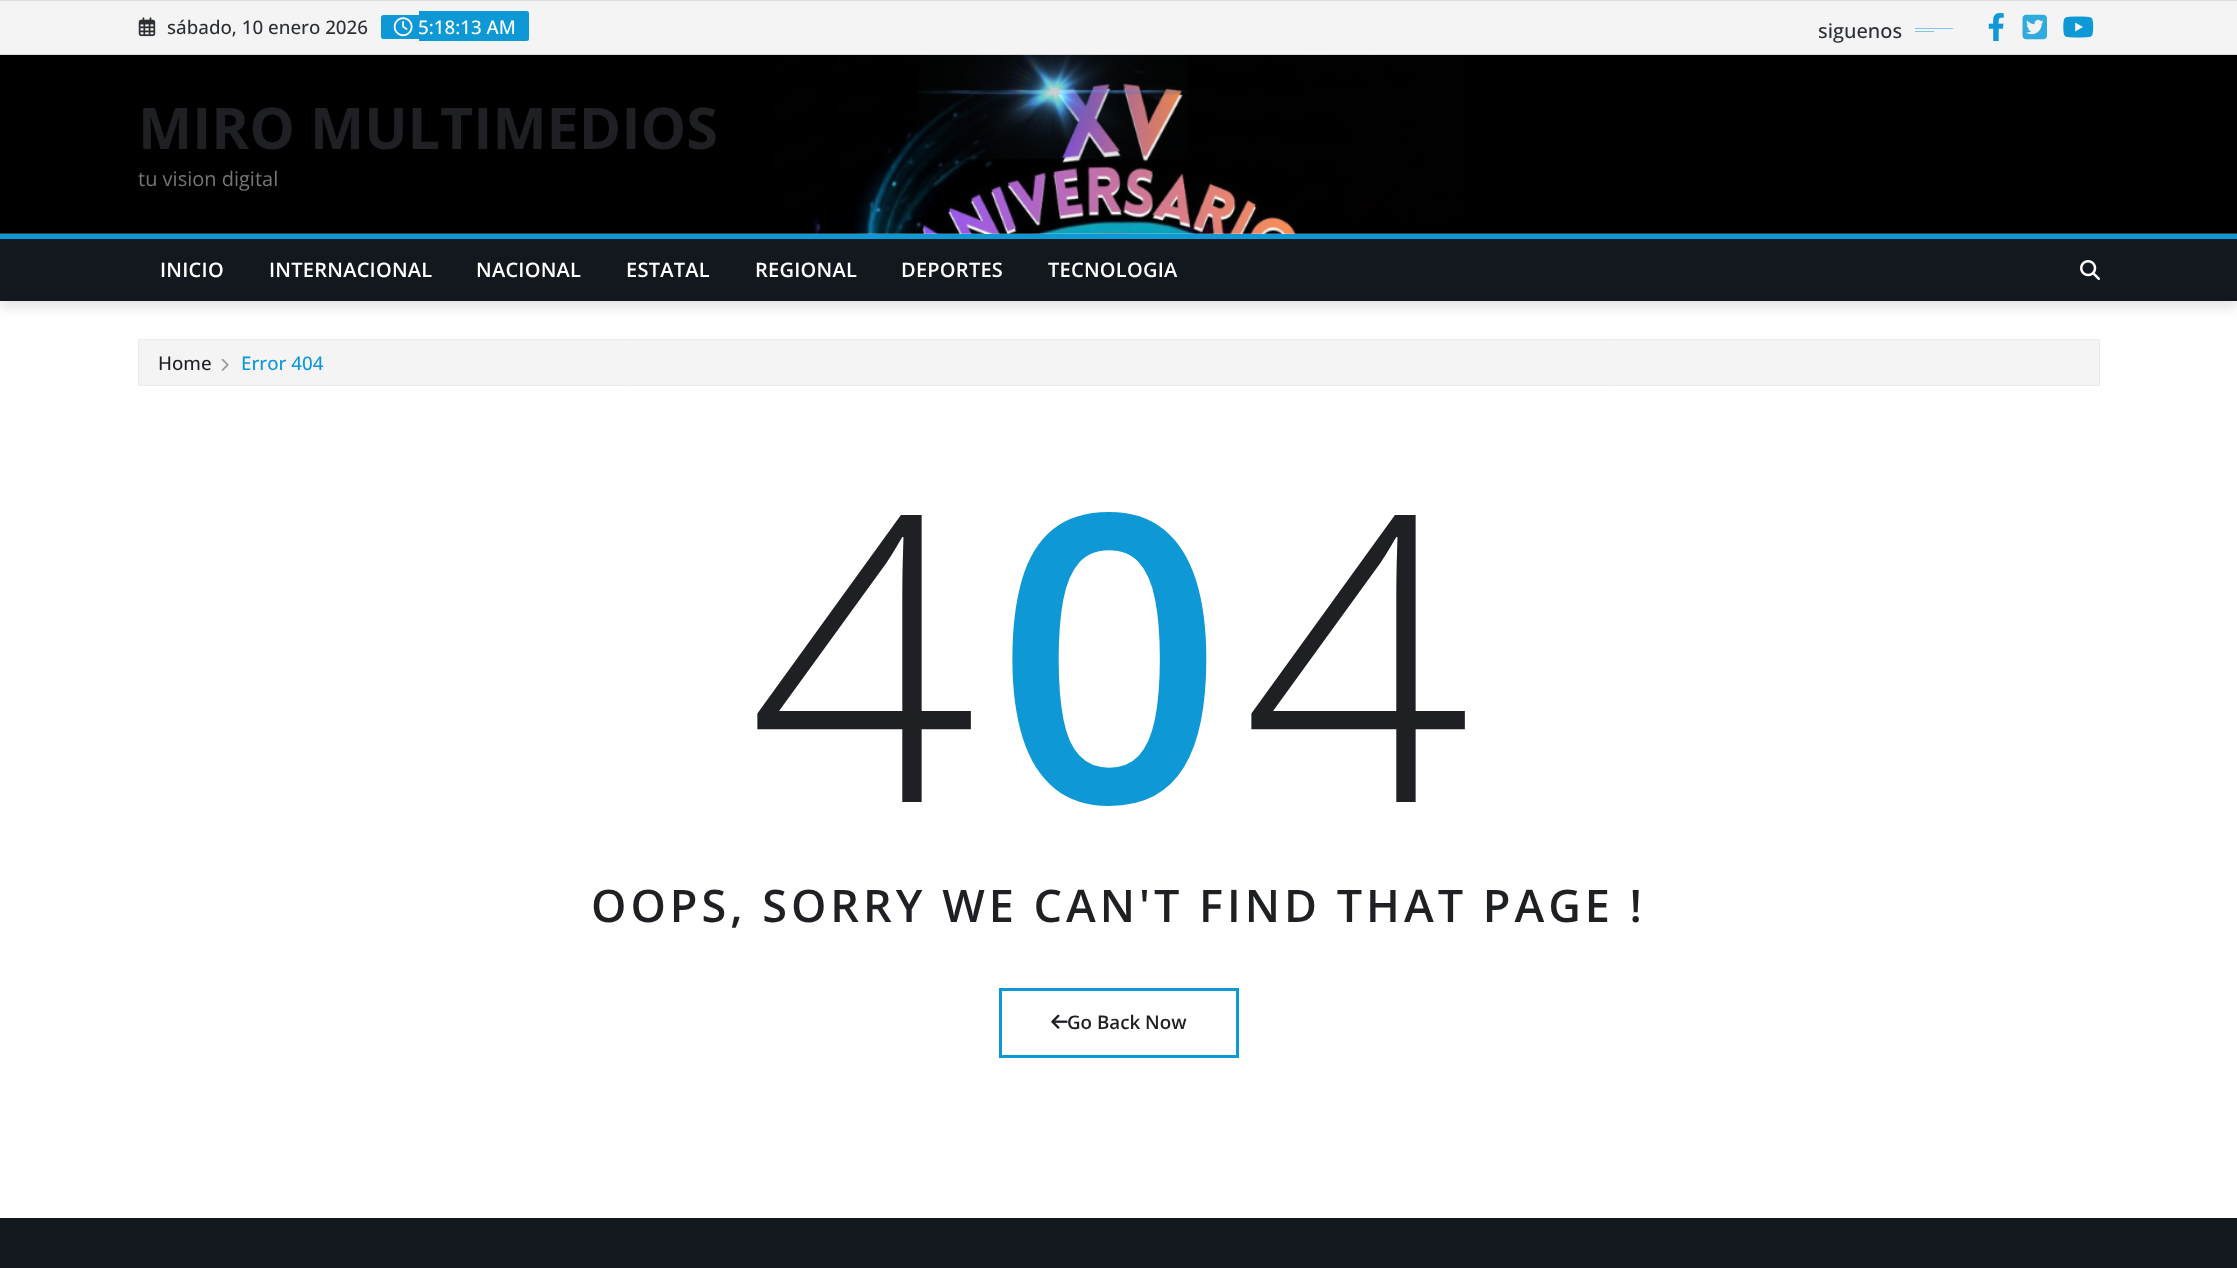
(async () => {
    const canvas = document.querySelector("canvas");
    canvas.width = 2237;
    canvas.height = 1268;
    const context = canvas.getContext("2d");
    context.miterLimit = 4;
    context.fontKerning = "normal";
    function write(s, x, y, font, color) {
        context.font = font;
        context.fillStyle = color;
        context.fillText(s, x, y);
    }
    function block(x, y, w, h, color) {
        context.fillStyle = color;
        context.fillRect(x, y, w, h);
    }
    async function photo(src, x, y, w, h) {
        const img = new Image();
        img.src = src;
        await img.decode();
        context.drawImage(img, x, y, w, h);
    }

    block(0, 0, 2237, 1268, "rgb(255, 255, 255)");
    block(0, 1, 2237, 53, "rgb(244, 244, 245)");
    block(0, 0, 2237, 1, "rgb(220, 220, 221)");
    block(0, 54, 2237, 1, "rgb(220, 220, 221)");
    await photo("media/1.png", 138, 17, 18, 20);
    write("sábado, 10 enero 2026", 167, 34, "500 18.75px Open Sans", "rgb(44, 47, 52)");
    context.fillStyle = "rgb(14, 152, 214)";
    context.beginPath();
    context.roundRect(381, 15, 38, 24, [2.5, 0, 0, 2.5]);
    context.fill();
    await photo("media/2.png", 393, 17, 20, 20);
    context.beginPath();
    context.roundRect(419, 11, 110, 30, [0, 2.5, 2.5, 0]);
    context.fill();
    write("5:18:13 AM", 418, 34, "500 18.75px Open Sans", "rgb(255, 255, 255)");
    write("siguenos", 1818, 38, "500 20px Open Sans", "rgb(44, 47, 52)");
    block(1915, 28, 38, 1, "rgb(129, 198, 230)");
    block(1915, 31, 19, 1, "rgb(129, 198, 230)");
    await photo("media/3.png", 1988, 13, 16, 28);
    await photo("media/4.png", 2022, 14, 25, 26);
    await photo("media/5.png", 2063, 16, 31, 22);
    await photo("media/6.png", 0, 55, 2237, 179);
    write("MIRO MULTIMEDIOS", 138, 149, "bold 57.5px Open Sans", "rgb(31, 32, 36)");
    write("tu vision digital", 138, 186, "20px Open Sans", "rgb(118, 118, 118)");
    context.fillStyle = "rgba(0, 0, 0, 0.1)";
    context.filter = "blur(6px)";
    context.beginPath();
    context.rect(0, 240, 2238, 68);
    context.fill();
    context.filter = "none";
    block(0, 239, 2237, 62, "rgb(19, 23, 30)");
    block(0, 234, 2237, 5, "rgb(14, 152, 214)");
    context.letterSpacing = "0.25px";
    write("INICIO", 160, 277, "600 20px Open Sans", "rgb(255, 255, 255)");
    write("INTERNACIONAL", 269, 277, "600 20px Open Sans", "rgb(255, 255, 255)");
    write("NACIONAL", 476, 277, "600 20px Open Sans", "rgb(255, 255, 255)");
    write("ESTATAL", 626, 277, "600 20px Open Sans", "rgb(255, 255, 255)");
    write("REGIONAL", 755, 277, "600 20px Open Sans", "rgb(255, 255, 255)");
    write("DEPORTES", 901, 277, "600 20px Open Sans", "rgb(255, 255, 255)");
    write("TECNOLOGIA", 1048, 277, "600 20px Open Sans", "rgb(255, 255, 255)");
    await photo("media/7.png", 2080, 260, 20, 20);
    context.fillStyle = "rgb(244, 244, 245)";
    context.beginPath();
    context.rect(138.5, 339.5, 1961, 46);
    context.fill();
    context.strokeStyle = "rgb(235, 235, 235)";
    context.stroke();
    context.letterSpacing = "0px";
    write("Home", 158, 370, "500 18.75px Open Sans", "rgb(31, 32, 36)");
    await photo("media/8.png", 221, 358, 8, 13);
    write("Error 404", 241, 370, "500 18.75px Open Sans", "rgb(14, 152, 214)");
    context.letterSpacing = "19px";
    write("4", 748, 802, "300 400px Open Sans", "rgb(31, 32, 36)");
    write("0", 995, 802, "600 400px Open Sans", "rgb(14, 152, 214)");
    write("4", 1242, 802, "300 400px Open Sans", "rgb(31, 32, 36)");
    context.letterSpacing = "4px";
    write("OOPS, SORRY WE CAN'T FIND THAT PAGE !", 591, 922, "600 45px Open Sans", "rgb(31, 32, 36)");
    context.strokeStyle = "rgb(14, 152, 214)";
    context.lineWidth = 3;
    context.strokeRect(1000.5, 989.5, 237, 67);
    await photo("media/9.png", 1051, 1014, 17, 15);
    context.letterSpacing = "0px";
    write("Go Back Now", 1067, 1029, "600 18.75px Open Sans", "rgb(31, 32, 36)");
    block(0, 1218, 2237, 50, "rgb(19, 23, 30)");
})();
